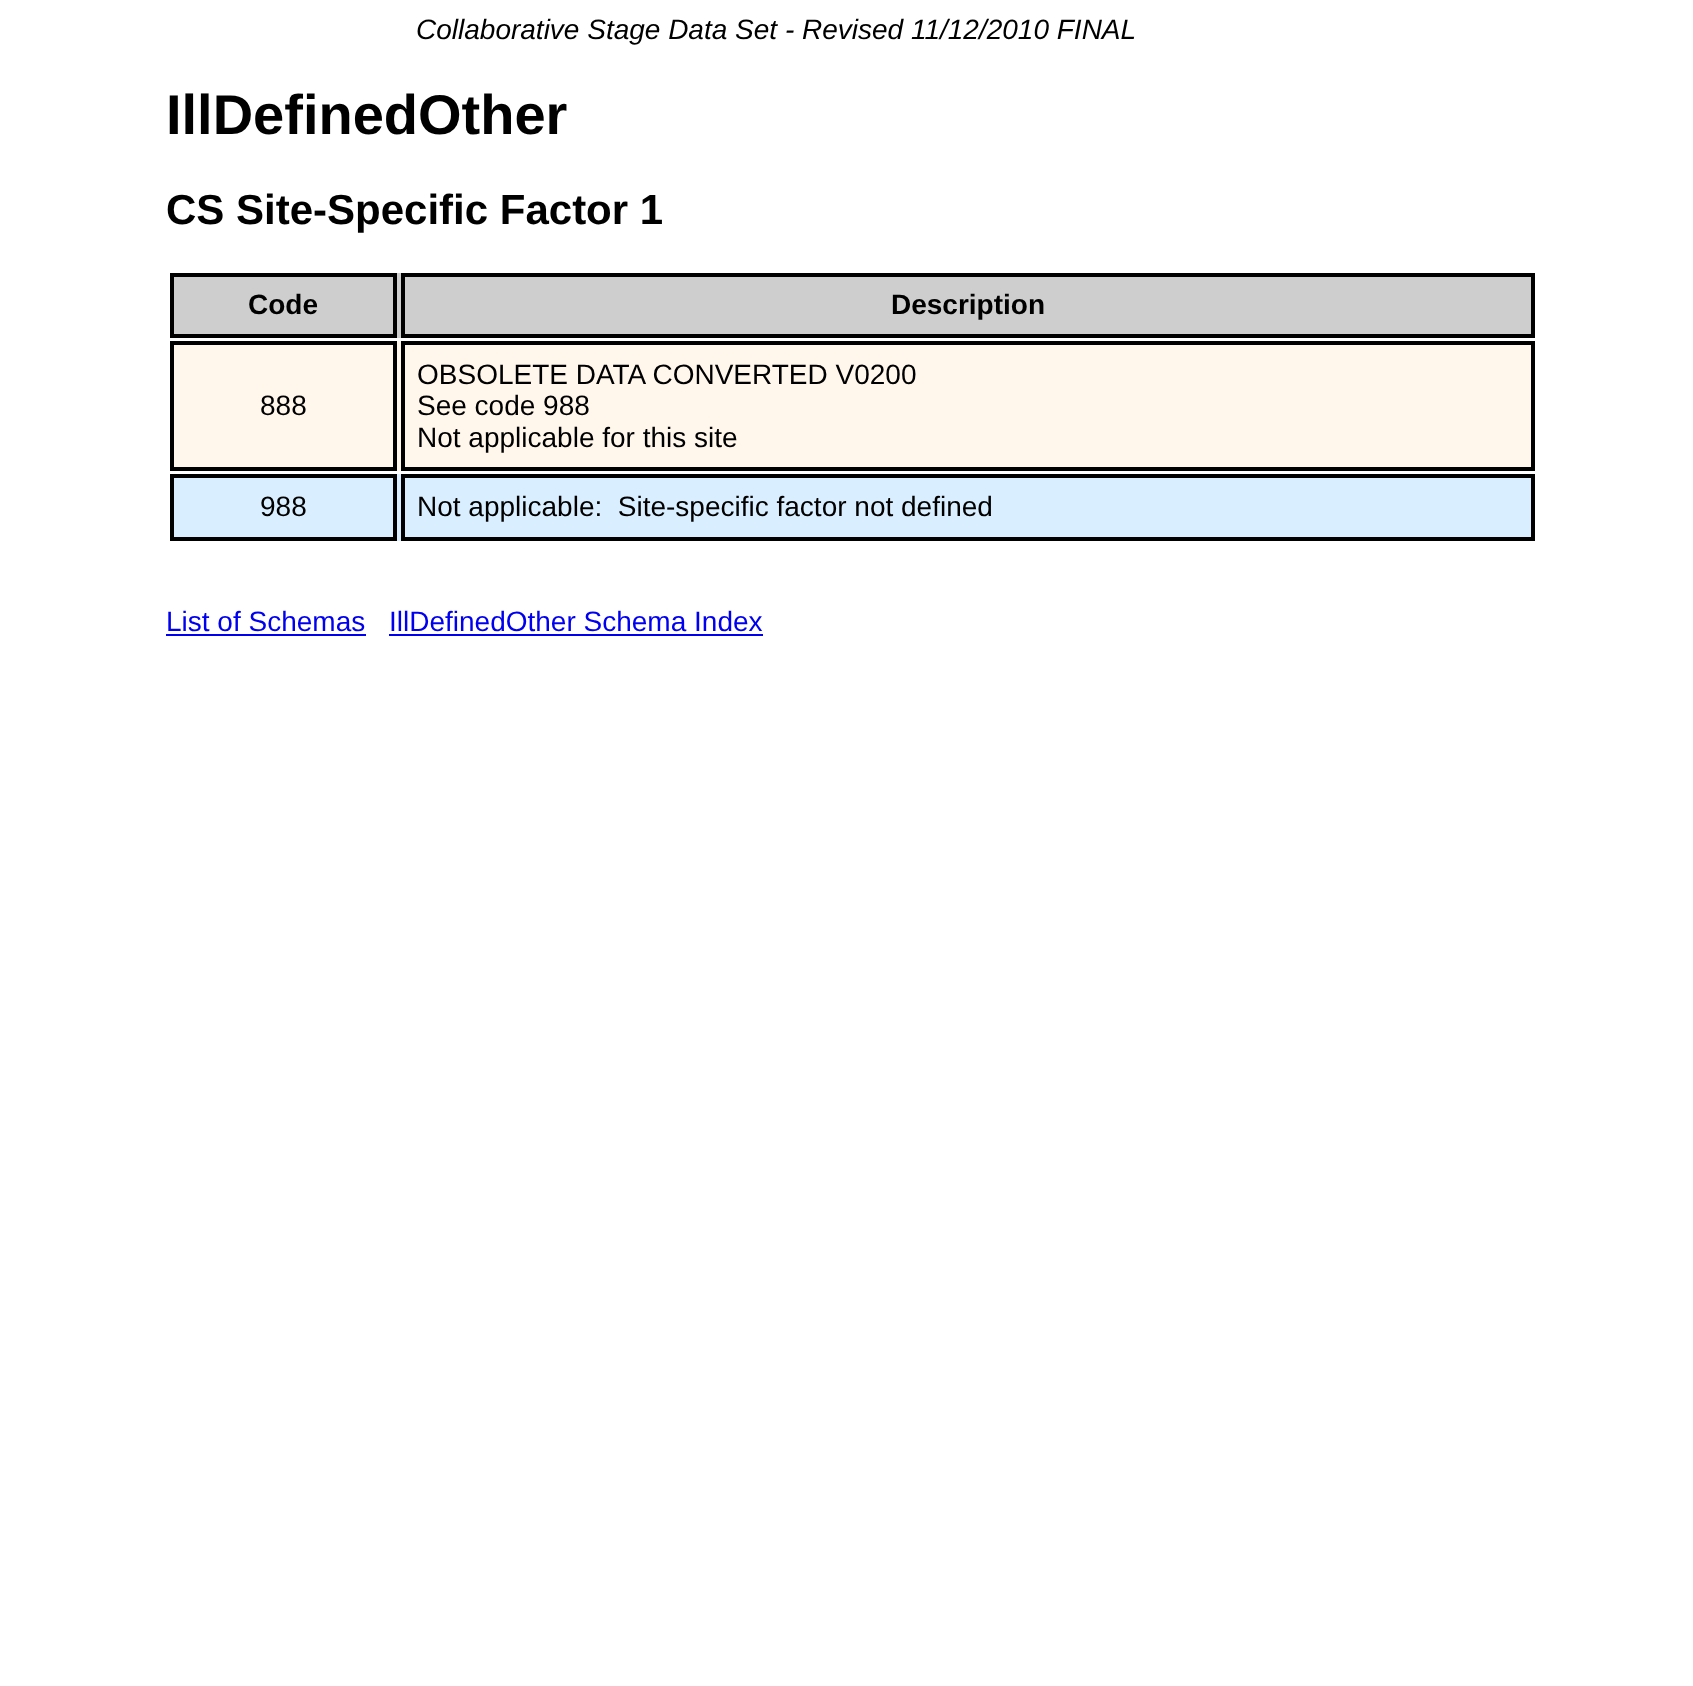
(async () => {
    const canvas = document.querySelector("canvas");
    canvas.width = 1693;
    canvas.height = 1686;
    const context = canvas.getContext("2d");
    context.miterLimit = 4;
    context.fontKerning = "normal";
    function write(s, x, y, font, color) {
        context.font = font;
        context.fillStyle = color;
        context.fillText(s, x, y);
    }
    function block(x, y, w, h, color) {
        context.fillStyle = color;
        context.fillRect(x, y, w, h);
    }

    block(0, 0, 1693, 1686, "rgb(255, 255, 255)");
    write("Collaborative Stage Data Set - Revised 11/12/2010 FINAL", 416, 39, "italic 28px Liberation Sans", "rgb(0, 0, 0)");
    write("IllDefinedOther", 166, 134, "bold 56px Liberation Sans", "rgb(0, 0, 0)");
    write("CS Site-Specific Factor 1", 166, 224, "bold 42px Liberation Sans", "rgb(0, 0, 0)");
    block(174, 273, 1357, 65, "rgb(206, 206, 206)");
    context.strokeStyle = "rgb(0, 0, 0)";
    context.lineWidth = 4;
    context.strokeRect(172, 275, 223, 61);
    write("Code", 248, 314, "bold 28px Liberation Sans", "rgb(0, 0, 0)");
    context.strokeRect(403, 275, 1130, 61);
    write("Description", 891, 314, "bold 28px Liberation Sans", "rgb(0, 0, 0)");
    block(174, 341, 1357, 130, "rgb(255, 247, 236)");
    context.strokeRect(172, 343, 223, 126);
    write("888", 260, 415, "28px Liberation Sans", "rgb(0, 0, 0)");
    context.strokeRect(403, 343, 1130, 126);
    write("OBSOLETE DATA CONVERTED V0200", 417, 384, "28px Liberation Sans", "rgb(0, 0, 0)");
    write("See code 988", 417, 415, "28px Liberation Sans", "rgb(0, 0, 0)");
    write("Not applicable for this site", 417, 447, "28px Liberation Sans", "rgb(0, 0, 0)");
    block(174, 474, 1357, 67, "rgb(217, 239, 255)");
    context.strokeRect(172, 476, 223, 63);
    write("988", 260, 516, "28px Liberation Sans", "rgb(0, 0, 0)");
    context.strokeRect(403, 476, 1130, 63);
    write("Not applicable:  Site-specific factor not defined", 417, 516, "28px Liberation Sans", "rgb(0, 0, 0)");
    write("List of Schemas", 166, 631, "28px Liberation Sans", "rgb(0, 0, 238)");
    block(166, 634, 200, 2, "rgb(0, 0, 238)");
    write("IllDefinedOther Schema Index", 389, 631, "28px Liberation Sans", "rgb(0, 0, 238)");
    block(389, 634, 374, 2, "rgb(0, 0, 238)");
})();
